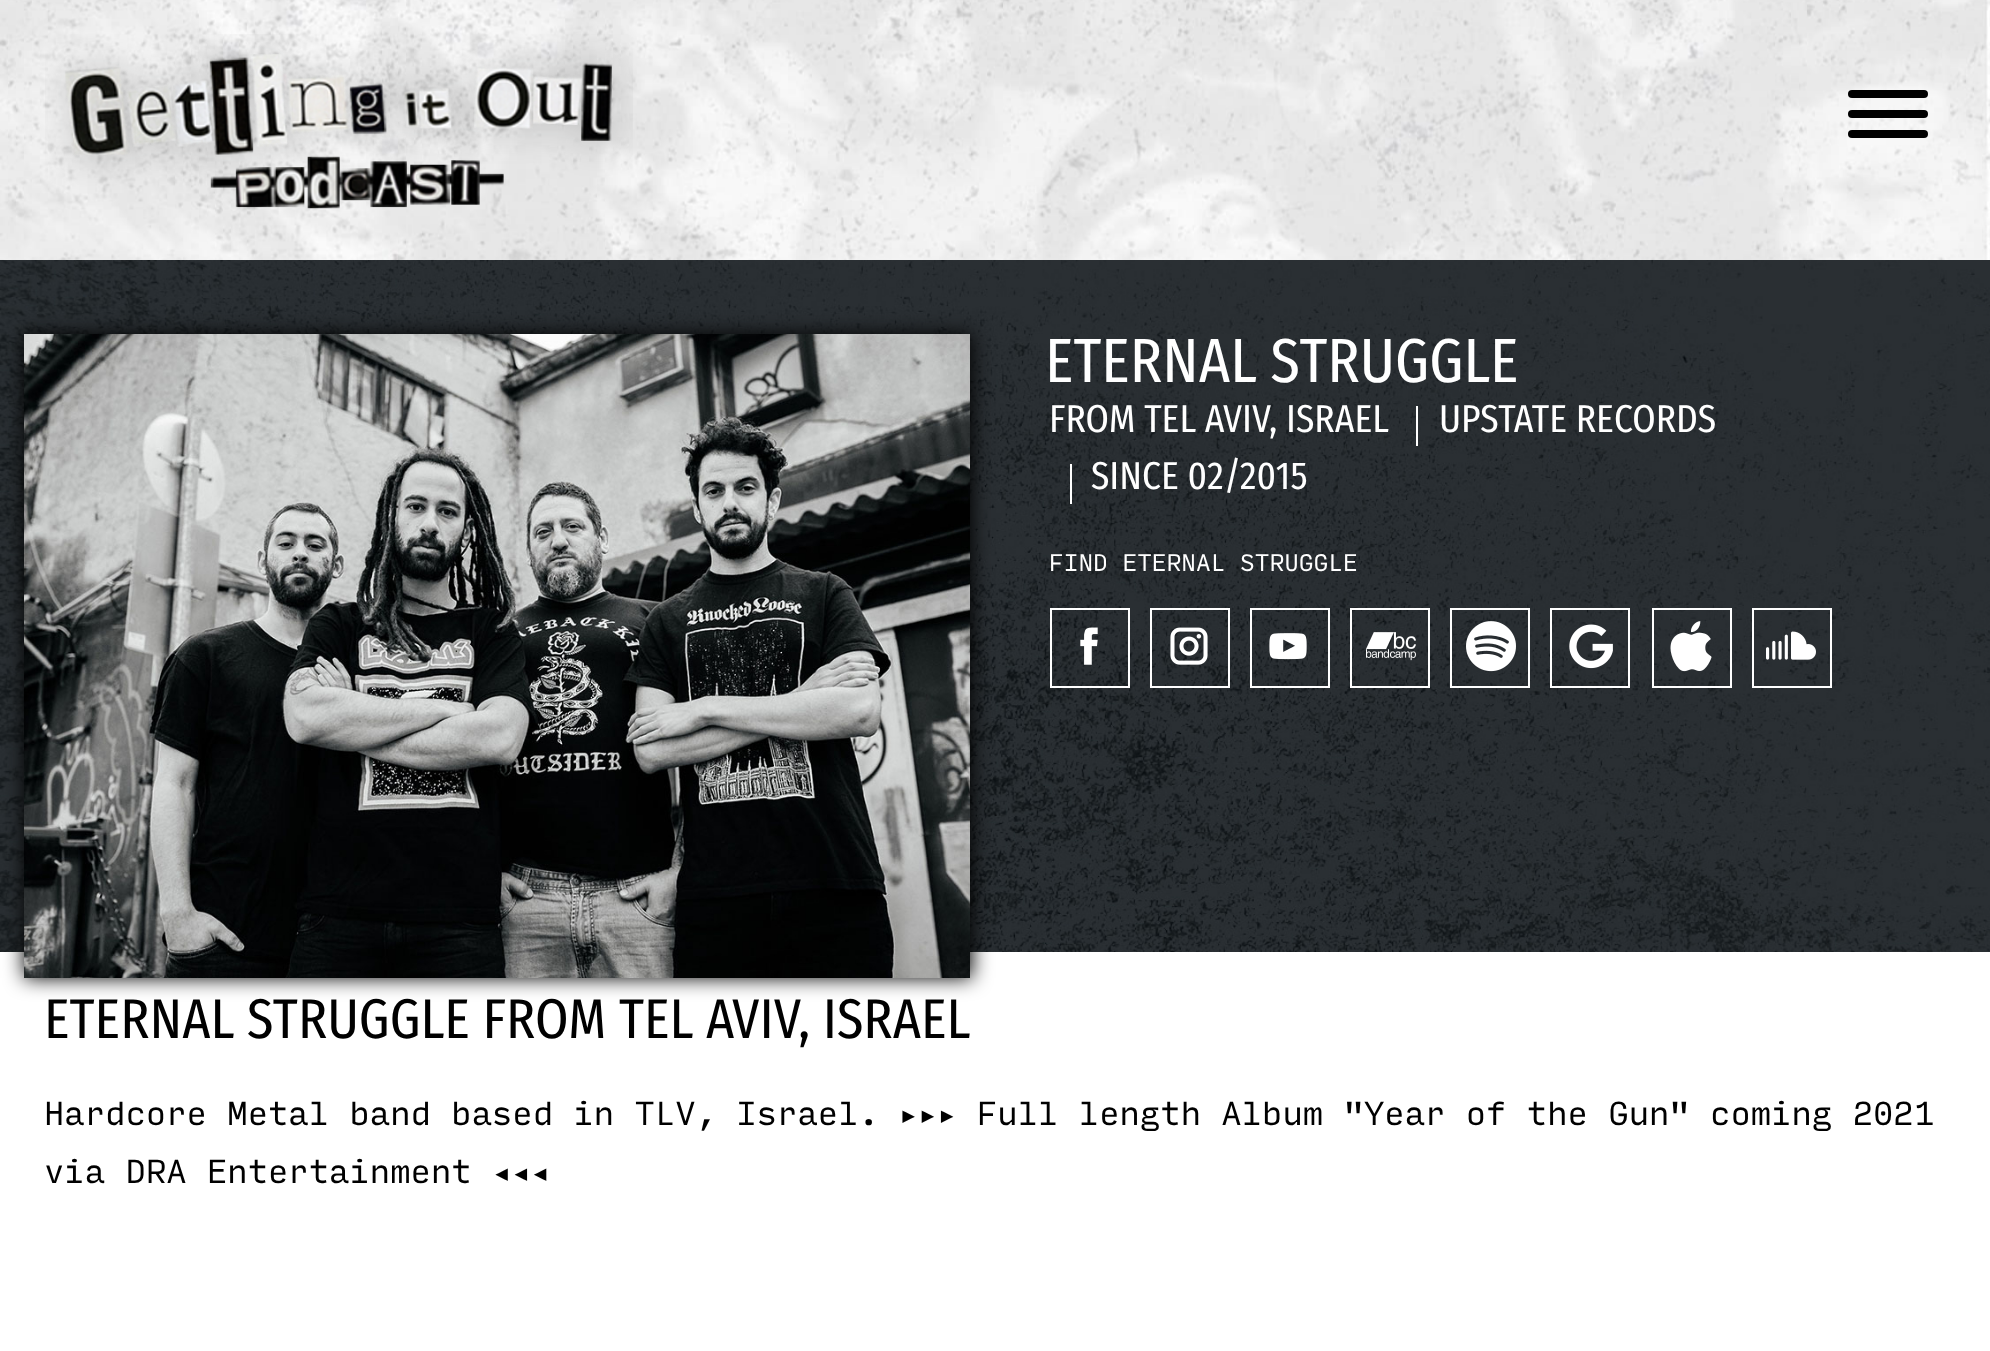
(async () => {
    const canvas = document.querySelector("canvas");
    canvas.width = 1990;
    canvas.height = 1351;
    const context = canvas.getContext("2d");
    context.miterLimit = 4;
    context.fontKerning = "normal";
    function write(s, x, y, font, color) {
        context.font = font;
        context.fillStyle = color;
        context.fillText(s, x, y);
    }
    function block(x, y, w, h, color) {
        context.fillStyle = color;
        context.fillRect(x, y, w, h);
    }
    function card(x, y, w, h, r, color) {
        context.fillStyle = color;
        context.beginPath();
        context.roundRect(x, y, w, h, r);
        context.fill();
    }
    async function photo(src, x, y, w, h) {
        const img = new Image();
        img.src = src;
        await img.decode();
        context.drawImage(img, x, y, w, h);
    }

    block(0, 0, 1990, 1351, "rgb(255, 255, 255)");
    await photo("media/1.png", 0, 0, 1990, 260);
    await photo("media/2.png", 45, 34, 588, 175);
    card(1848, 130, 80, 8, 4, "rgb(0, 0, 0)");
    card(1848, 90, 80, 8, 4, "rgb(0, 0, 0)");
    card(1848, 110, 80, 8, 4, "rgb(0, 0, 0)");
    await photo("media/3.png", 0, 260, 1990, 692);
    context.filter = "blur(10px)";
    context.beginPath();
    context.rect(24, 334, 948, 644);
    context.fill();
    context.filter = "none";
    await photo("media/4.png", 24, 334, 946, 644);
    write("ETERNAL STRUGGLE", 1045, 382, "62.25px Fira Sans Condensed", "rgb(255, 255, 255)");
    write("FROM TEL AVIV, ISRAEL", 1049, 432, "39px Fira Sans Condensed", "rgb(255, 255, 255)");
    block(1416, 406, 2, 40, "rgb(255, 255, 255)");
    write("UPSTATE RECORDS", 1439, 432, "39px Fira Sans Condensed", "rgb(255, 255, 255)");
    block(1070, 464, 2, 40, "rgb(255, 255, 255)");
    write("SINCE 02/2015", 1091, 489, "39px Fira Sans Condensed", "rgb(255, 255, 255)");
    write("FIND ETERNAL STRUGGLE", 1049, 571, "23.1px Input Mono", "rgb(255, 255, 255)");
    context.strokeStyle = "rgb(255, 255, 255)";
    context.lineWidth = 2;
    context.strokeRect(1051, 609, 78, 78);
    await photo("media/5.png", 1080, 627, 18, 38);
    context.strokeRect(1151, 609, 78, 78);
    await photo("media/6.png", 1170, 627, 38, 38);
    context.strokeRect(1251, 609, 78, 78);
    await photo("media/7.png", 1269, 633, 38, 27);
    context.strokeRect(1351, 609, 78, 78);
    await photo("media/8.png", 1366, 632, 50, 29);
    context.strokeRect(1451, 609, 78, 78);
    await photo("media/9.png", 1466, 621, 50, 51);
    context.strokeRect(1551, 609, 78, 78);
    await photo("media/10.png", 1569, 624, 44, 45);
    context.strokeRect(1653, 609, 78, 78);
    await photo("media/11.png", 1670, 621, 42, 51);
    context.strokeRect(1753, 609, 78, 78);
    await photo("media/12.png", 1766, 631, 50, 29);
    write("ETERNAL STRUGGLE FROM TEL AVIV, ISRAEL", 44, 1038, "56px Fira Sans Condensed", "rgb(0, 0, 0)");
    write("Hardcore Metal band based in TLV, Israel.", 44, 1125, "32px Input Mono", "rgb(0, 0, 0)");
    write("▸▸▸", 899, 1125, "32px DejaVu Sans Mono", "rgb(0, 0, 0)");
    write("Full length Album \"Year of the Gun\" coming 2021", 977, 1125, "32px Input Mono", "rgb(0, 0, 0)");
    write("via DRA Entertainment", 44, 1183, "32px Input Mono", "rgb(0, 0, 0)");
    write("◂◂◂", 492, 1183, "32px DejaVu Sans Mono", "rgb(0, 0, 0)");
})();
